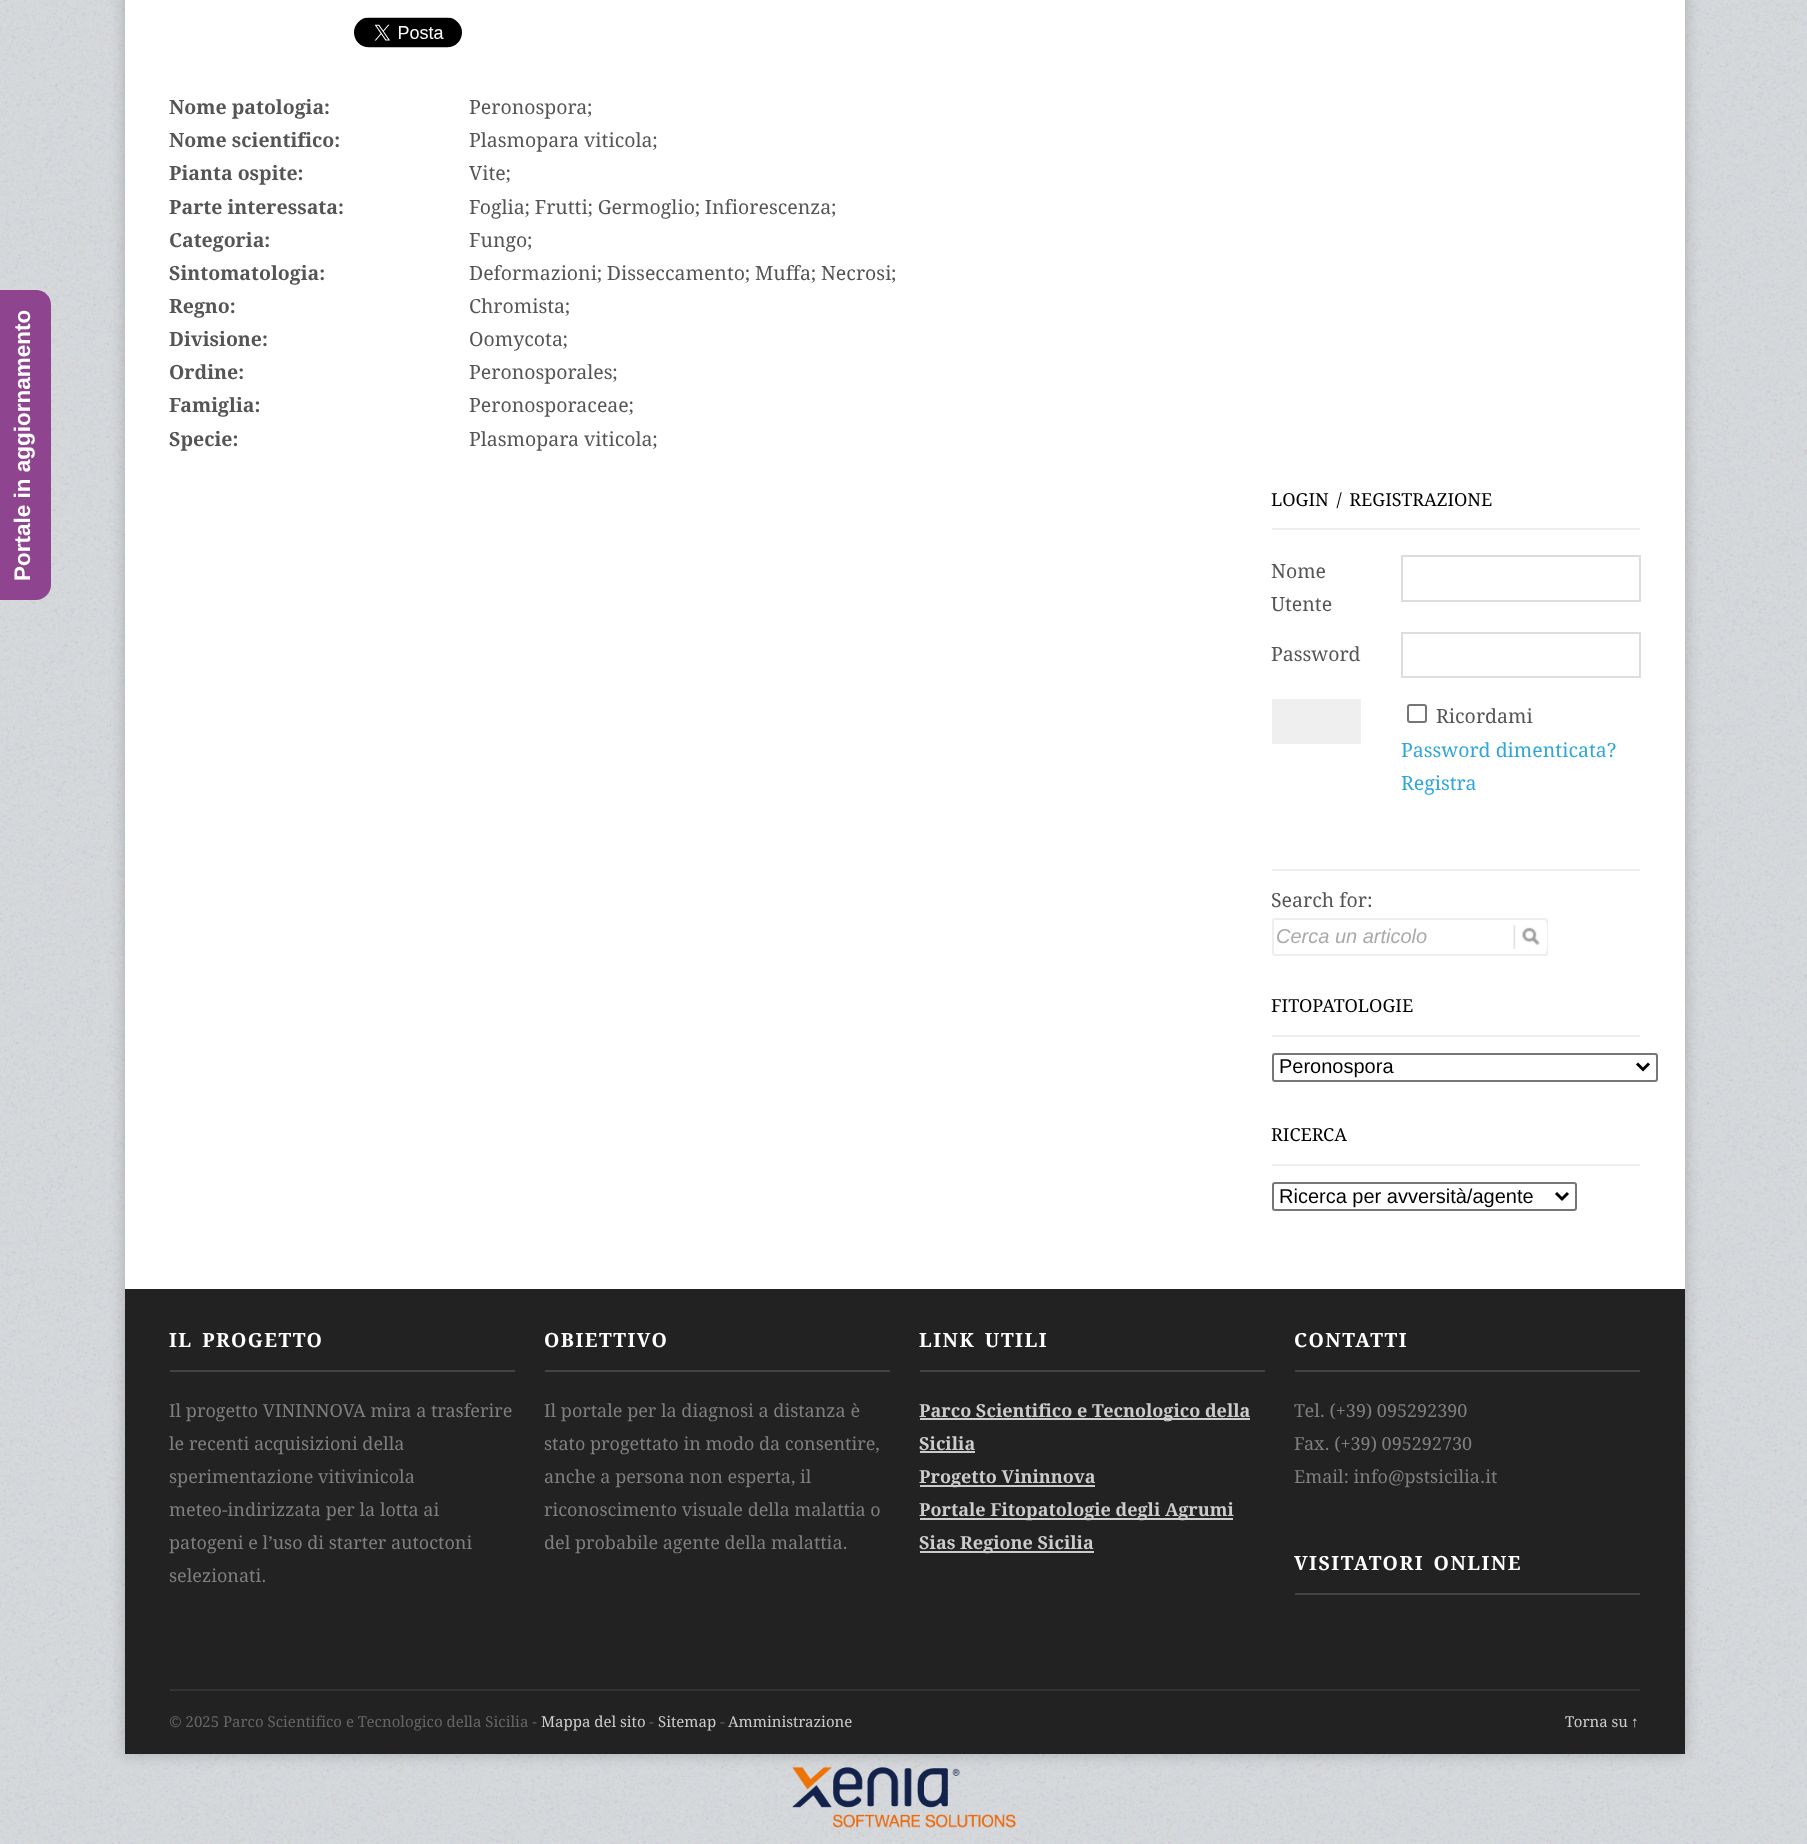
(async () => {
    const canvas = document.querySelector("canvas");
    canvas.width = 1807;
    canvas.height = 1844;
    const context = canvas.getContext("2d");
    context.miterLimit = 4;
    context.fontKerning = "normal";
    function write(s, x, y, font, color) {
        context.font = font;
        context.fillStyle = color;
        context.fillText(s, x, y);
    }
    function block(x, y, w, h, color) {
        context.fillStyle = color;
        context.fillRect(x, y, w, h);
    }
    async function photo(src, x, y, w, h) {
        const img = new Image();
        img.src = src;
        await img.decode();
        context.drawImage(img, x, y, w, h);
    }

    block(0, 0, 1807, 1844, "rgb(255, 255, 255)");
    await photo("media/1.png", 0, 0, 1807, 1844);
    context.fillStyle = "rgb(143, 68, 143)";
    context.beginPath();
    context.moveTo(-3, 600);
    context.lineTo(-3, 290);
    context.lineTo(36, 290);
    context.bezierCurveTo(44, 290, 51, 296, 51, 305);
    context.lineTo(51, 585);
    context.bezierCurveTo(51, 593, 44, 600, 36, 600);
    context.closePath();
    context.fill();
    context.font = "bold 22.5px Liberation Sans";
    context.fillStyle = "rgb(255, 255, 255)";
    context.save();
    context.translate(30, 581);
    context.rotate(-90 * Math.PI / 180);
    context.fillText("Portale in aggiornamento", 0, 0);
    context.restore();
    context.fillStyle = "rgba(0, 0, 0, 0.2)";
    context.filter = "blur(7.5px)";
    context.beginPath();
    context.rect(125, -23, 1560, 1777);
    context.fill();
    context.filter = "none";
    block(125, 0, 1560, 1289, "rgb(255, 255, 255)");
    await photo("media/2.png", 354, 17, 108, 31);
    write("Nome patologia:", 169, 114, "bold 19.5px Droid Serif", "rgb(85, 85, 85)");
    write("Peronospora;", 469, 114, "19.5px Droid Serif", "rgb(85, 85, 85)");
    write("Nome scientifico:", 169, 147, "bold 19.5px Droid Serif", "rgb(85, 85, 85)");
    write("Plasmopara viticola;", 469, 147, "19.5px Droid Serif", "rgb(85, 85, 85)");
    write("Pianta ospite:", 169, 180, "bold 19.5px Droid Serif", "rgb(85, 85, 85)");
    write("Vite;", 469, 180, "19.5px Droid Serif", "rgb(85, 85, 85)");
    write("Parte interessata:", 169, 214, "bold 19.5px Droid Serif", "rgb(85, 85, 85)");
    write("Foglia; Frutti; Germoglio; Infiorescenza;", 469, 214, "19.5px Droid Serif", "rgb(85, 85, 85)");
    write("Categoria:", 169, 247, "bold 19.5px Droid Serif", "rgb(85, 85, 85)");
    write("Fungo;", 469, 247, "19.5px Droid Serif", "rgb(85, 85, 85)");
    write("Sintomatologia:", 169, 280, "bold 19.5px Droid Serif", "rgb(85, 85, 85)");
    write("Deformazioni; Disseccamento; Muffa; Necrosi;", 469, 280, "19.5px Droid Serif", "rgb(85, 85, 85)");
    write("Regno:", 169, 313, "bold 19.5px Droid Serif", "rgb(85, 85, 85)");
    write("Chromista;", 469, 313, "19.5px Droid Serif", "rgb(85, 85, 85)");
    write("Divisione:", 169, 346, "bold 19.5px Droid Serif", "rgb(85, 85, 85)");
    write("Oomycota;", 469, 346, "19.5px Droid Serif", "rgb(85, 85, 85)");
    write("Ordine:", 169, 379, "bold 19.5px Droid Serif", "rgb(85, 85, 85)");
    write("Peronosporales;", 469, 379, "19.5px Droid Serif", "rgb(85, 85, 85)");
    write("Famiglia:", 169, 412, "bold 19.5px Droid Serif", "rgb(85, 85, 85)");
    write("Peronosporaceae;", 469, 412, "19.5px Droid Serif", "rgb(85, 85, 85)");
    write("Specie:", 169, 446, "bold 19.5px Droid Serif", "rgb(85, 85, 85)");
    write("Plasmopara viticola;", 469, 446, "19.5px Droid Serif", "rgb(85, 85, 85)");
    block(1272, 528, 368, 2, "rgb(238, 238, 238)");
    context.wordSpacing = "3px";
    write("LOGIN / REGISTRAZIONE", 1271, 506, "18px Droid Serif", "rgb(0, 0, 0)");
    context.wordSpacing = "0px";
    write("Nome", 1271, 578, "19.5px Droid Serif", "rgb(85, 85, 85)");
    write("Utente", 1271, 611, "19.5px Droid Serif", "rgb(85, 85, 85)");
    context.strokeStyle = "rgb(221, 221, 221)";
    context.lineWidth = 2;
    context.strokeRect(1402, 556, 238, 45);
    write("Password", 1271, 661, "19.5px Droid Serif", "rgb(85, 85, 85)");
    context.strokeRect(1402, 633, 238, 44);
    block(1272, 699, 89, 45, "rgb(239, 239, 239)");
    context.beginPath();
    context.roundRect(1408, 705, 18, 17, 2);
    context.strokeStyle = "rgb(118, 118, 118)";
    context.stroke();
    write("Ricordami", 1436, 723, "19.5px Droid Serif", "rgb(85, 85, 85)");
    write("Password dimenticata?", 1401, 757, "19.5px Droid Serif", "rgb(48, 167, 216)");
    write("Registra", 1401, 790, "19.5px Droid Serif", "rgb(48, 167, 216)");
    block(1272, 869, 368, 2, "rgb(238, 238, 238)");
    write("Search for:", 1271, 907, "19.5px Droid Serif", "rgb(85, 85, 85)");
    context.beginPath();
    context.roundRect(1273, 919, 274, 36, 2);
    context.strokeStyle = "rgb(238, 238, 238)";
    context.stroke();
    block(1546, 923, 1, 28, "rgb(255, 255, 255)");
    write("Cerca un articolo", 1276, 943, "italic 20px Liberation Sans", "rgb(170, 170, 170)");
    await photo("media/3.png", 1513, 925, 27, 24);
    block(1272, 1035, 368, 2, "rgb(238, 238, 238)");
    write("FITOPATOLOGIE", 1271, 1012, "18px Droid Serif", "rgb(0, 0, 0)");
    context.beginPath();
    context.roundRect(1273, 1054, 384, 27, 2);
    context.strokeStyle = "rgb(118, 118, 118)";
    context.stroke();
    context.beginPath();
    context.moveTo(1637, 1063.5);
    context.lineTo(1643, 1069.5);
    context.lineTo(1649, 1063.5);
    context.strokeStyle = "rgb(0, 0, 0)";
    context.lineWidth = 3;
    context.stroke();
    write("Peronospora", 1279, 1073, "20px Liberation Sans", "rgb(0, 0, 0)");
    block(1272, 1164, 368, 2, "rgb(238, 238, 238)");
    write("RICERCA", 1271, 1141, "18px Droid Serif", "rgb(0, 0, 0)");
    context.beginPath();
    context.roundRect(1273, 1183, 303, 27, 2);
    context.strokeStyle = "rgb(118, 118, 118)";
    context.lineWidth = 2;
    context.stroke();
    context.beginPath();
    context.moveTo(1556, 1193);
    context.lineTo(1562, 1199);
    context.lineTo(1568, 1193);
    context.strokeStyle = "rgb(0, 0, 0)";
    context.lineWidth = 3;
    context.stroke();
    write("Ricerca per avversità/agente", 1279, 1203, "20px Liberation Sans", "rgb(0, 0, 0)");
    block(125, 1289, 1560, 465, "rgb(34, 34, 34)");
    block(170, 1370, 345, 2, "rgb(68, 68, 68)");
    context.letterSpacing = "1.5px";
    context.wordSpacing = "3px";
    write("IL PROGETTO", 169, 1347, "bold 19.5px Droid Serif", "rgb(255, 255, 255)");
    context.letterSpacing = "0px";
    context.wordSpacing = "0px";
    write("Il progetto VININNOVA mira a trasferire", 169, 1417, "18px Droid Serif", "rgb(127, 127, 127)");
    write("le recenti acquisizioni della", 169, 1450, "18px Droid Serif", "rgb(127, 127, 127)");
    write("sperimentazione vitivinicola", 169, 1483, "18px Droid Serif", "rgb(127, 127, 127)");
    write("meteo-indirizzata per la lotta ai", 169, 1516, "18px Droid Serif", "rgb(127, 127, 127)");
    write("patogeni e l’uso di starter autoctoni", 169, 1549, "18px Droid Serif", "rgb(127, 127, 127)");
    write("selezionati.", 169, 1582, "18px Droid Serif", "rgb(127, 127, 127)");
    block(545, 1370, 345, 2, "rgb(68, 68, 68)");
    context.letterSpacing = "1.5px";
    write("OBIETTIVO", 544, 1347, "bold 19.5px Droid Serif", "rgb(255, 255, 255)");
    context.letterSpacing = "0px";
    write("Il portale per la diagnosi a distanza è", 544, 1417, "18px Droid Serif", "rgb(127, 127, 127)");
    write("stato progettato in modo da consentire,", 544, 1450, "18px Droid Serif", "rgb(127, 127, 127)");
    write("anche a persona non esperta, il", 544, 1483, "18px Droid Serif", "rgb(127, 127, 127)");
    write("riconoscimento visuale della malattia o", 544, 1516, "18px Droid Serif", "rgb(127, 127, 127)");
    write("del probabile agente della malattia.", 544, 1549, "18px Droid Serif", "rgb(127, 127, 127)");
    block(920, 1370, 345, 2, "rgb(68, 68, 68)");
    context.letterSpacing = "1.5px";
    context.wordSpacing = "3px";
    write("LINK UTILI", 919, 1347, "bold 19.5px Droid Serif", "rgb(255, 255, 255)");
    block(920, 1418, 330, 2, "rgb(204, 204, 204)");
    context.letterSpacing = "0px";
    context.wordSpacing = "0px";
    write("Parco Scientifico e Tecnologico della", 919, 1417, "bold 18px Droid Serif", "rgb(204, 204, 204)");
    write("Sicilia", 919, 1450, "bold 18px Droid Serif", "rgb(204, 204, 204)");
    block(920, 1451, 55, 2, "rgb(204, 204, 204)");
    block(920, 1485, 175, 2, "rgb(204, 204, 204)");
    write("Progetto Vininnova", 919, 1483, "bold 18px Droid Serif", "rgb(204, 204, 204)");
    block(920, 1518, 313, 2, "rgb(204, 204, 204)");
    write("Portale Fitopatologie degli Agrumi", 919, 1516, "bold 18px Droid Serif", "rgb(204, 204, 204)");
    block(920, 1551, 174, 2, "rgb(204, 204, 204)");
    write("Sias Regione Sicilia", 919, 1549, "bold 18px Droid Serif", "rgb(204, 204, 204)");
    block(1295, 1370, 345, 2, "rgb(68, 68, 68)");
    context.letterSpacing = "1.5px";
    write("CONTATTI", 1294, 1347, "bold 19.5px Droid Serif", "rgb(255, 255, 255)");
    context.letterSpacing = "0px";
    write("Tel. (+39) 095292390", 1294, 1417, "18px Droid Serif", "rgb(127, 127, 127)");
    write("Fax. (+39) 095292730", 1294, 1450, "18px Droid Serif", "rgb(127, 127, 127)");
    write("Email: info@pstsicilia.it", 1294, 1483, "18px Droid Serif", "rgb(127, 127, 127)");
    block(1295, 1593, 345, 2, "rgb(68, 68, 68)");
    context.letterSpacing = "1.5px";
    context.wordSpacing = "3px";
    write("VISITATORI ONLINE", 1294, 1570, "bold 19.5px Droid Serif", "rgb(255, 255, 255)");
    block(170, 1689, 1470, 2, "rgb(51, 51, 51)");
    context.letterSpacing = "0px";
    context.wordSpacing = "0px";
    write("© 2025 Parco Scientifico e Tecnologico della Sicilia -", 169, 1727, "15px Droid Serif", "rgb(102, 102, 102)");
    write("Mappa del sito", 541, 1727, "15px Droid Serif", "rgb(204, 204, 204)");
    write("-", 649, 1727, "15px Droid Serif", "rgb(102, 102, 102)");
    write("Sitemap", 658, 1727, "15px Droid Serif", "rgb(204, 204, 204)");
    write("-", 720, 1727, "15px Droid Serif", "rgb(102, 102, 102)");
    write("Amministrazione", 728, 1727, "15px Droid Serif", "rgb(204, 204, 204)");
    write("Torna su", 1565, 1727, "15px Droid Serif", "rgb(204, 204, 204)");
    write("↑", 1631, 1727, "15px Liberation Sans", "rgb(204, 204, 204)");
    await photo("media/4.png", 792, 1767, 224, 61);
})();
